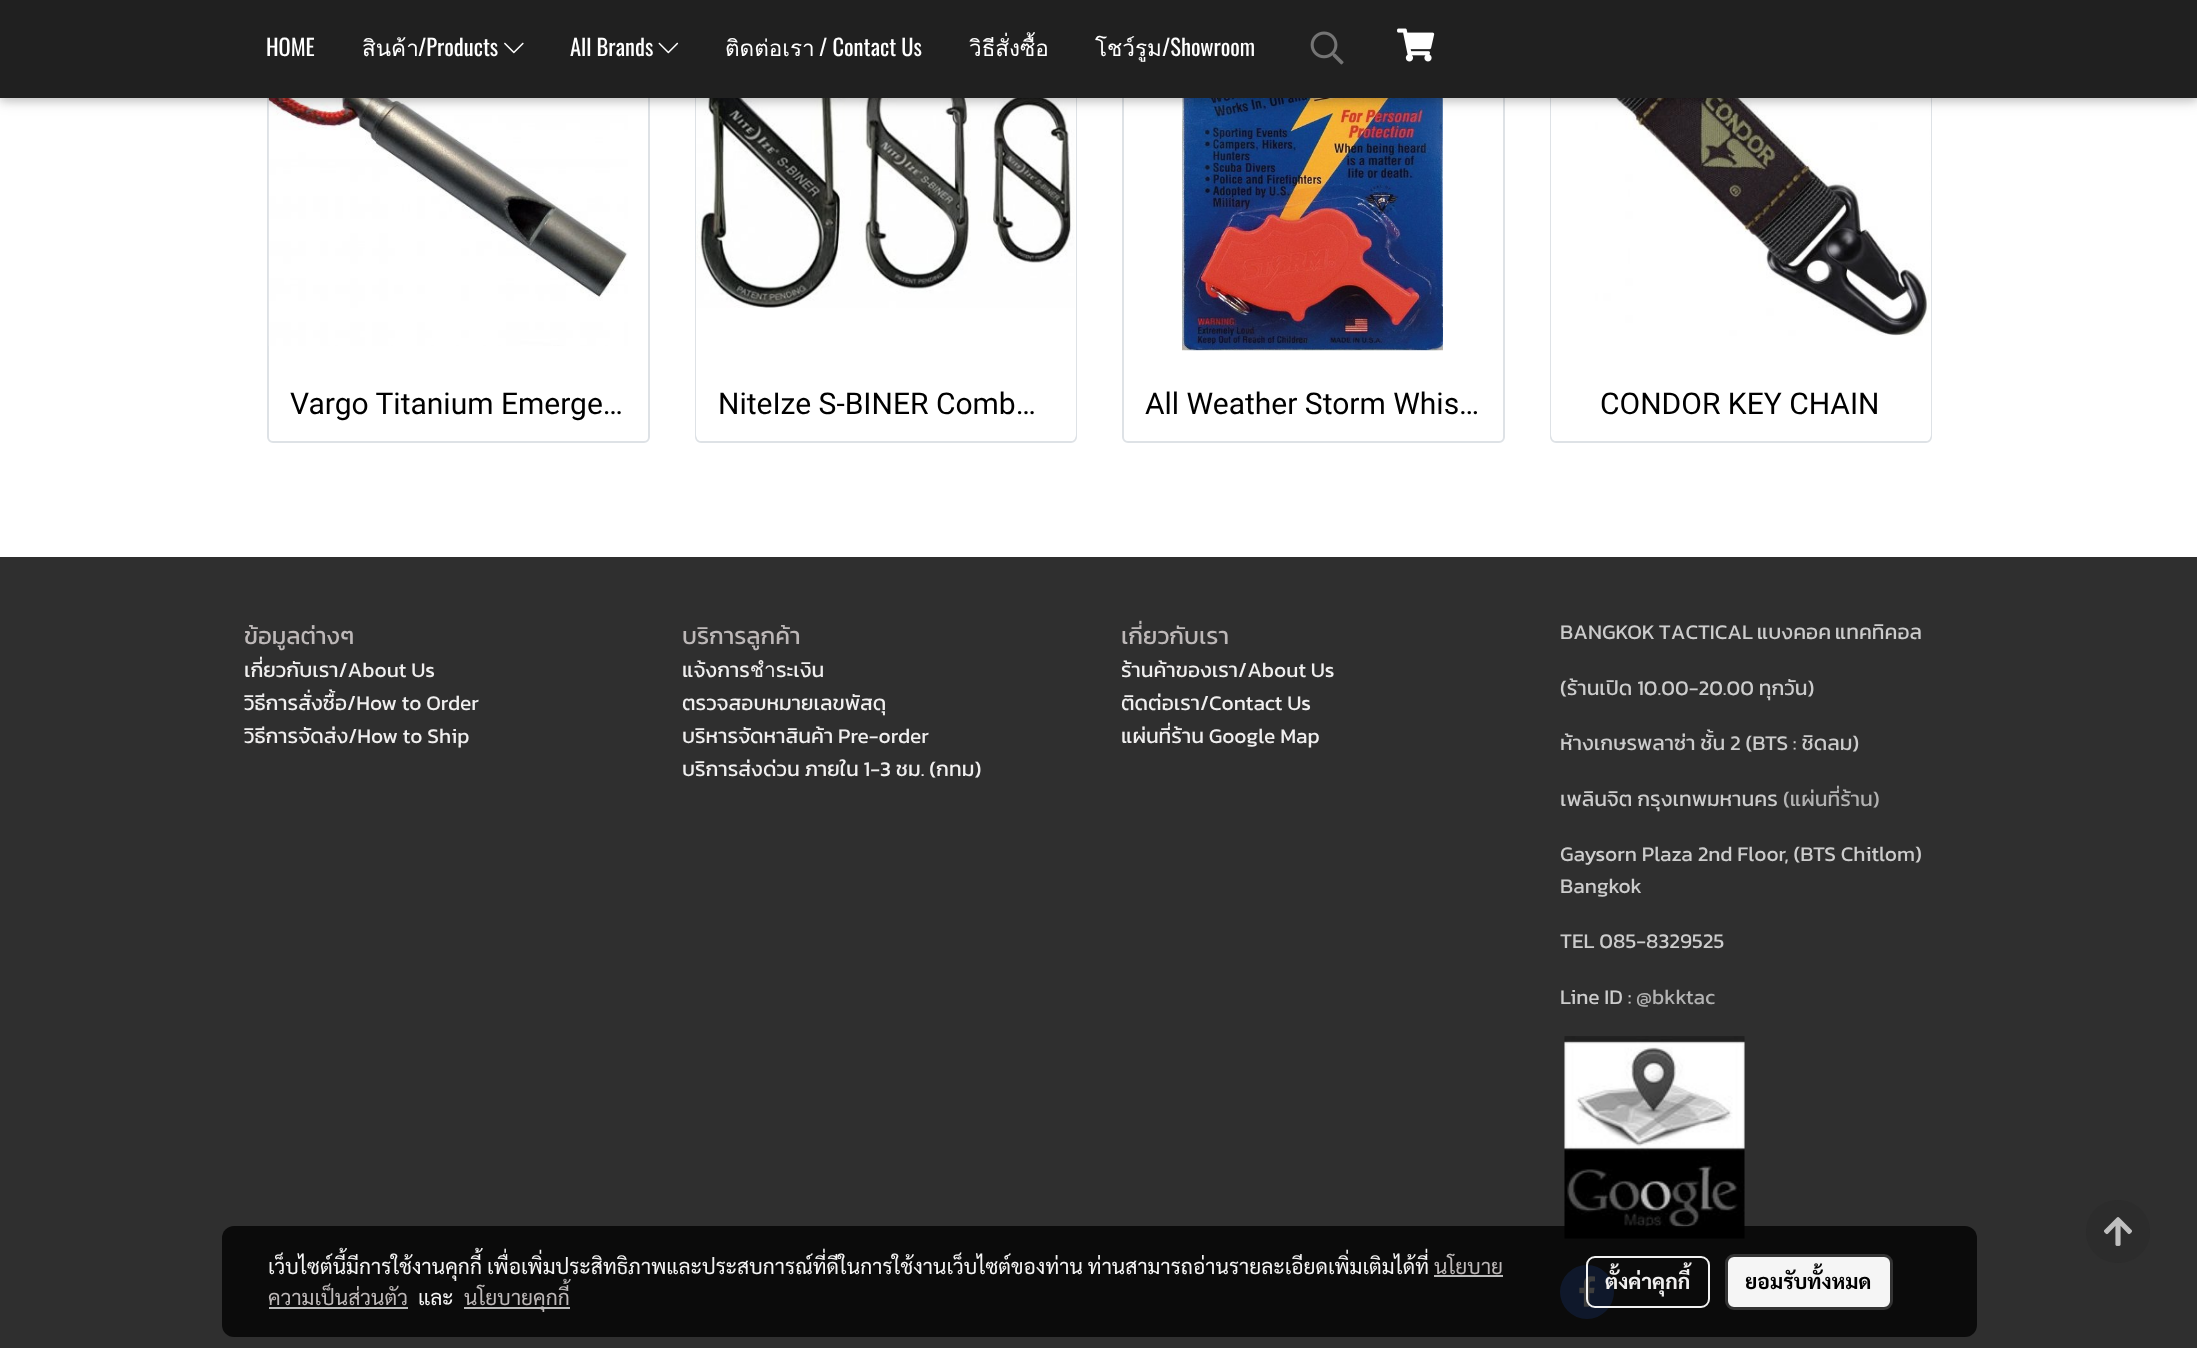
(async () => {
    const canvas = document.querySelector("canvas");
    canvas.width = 2197;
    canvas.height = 1348;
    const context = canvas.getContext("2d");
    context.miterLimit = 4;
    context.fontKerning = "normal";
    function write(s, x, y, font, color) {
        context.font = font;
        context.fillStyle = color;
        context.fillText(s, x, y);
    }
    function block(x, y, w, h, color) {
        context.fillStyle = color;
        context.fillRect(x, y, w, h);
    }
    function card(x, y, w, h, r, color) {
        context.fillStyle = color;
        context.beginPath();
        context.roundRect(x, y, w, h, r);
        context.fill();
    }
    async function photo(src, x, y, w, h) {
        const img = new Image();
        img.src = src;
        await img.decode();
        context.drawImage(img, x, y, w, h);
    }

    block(0, 0, 2197, 1348, "rgb(255, 255, 255)");
    context.beginPath();
    context.roundRect(268, -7, 381, 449, 5);
    context.strokeStyle = "rgb(222, 226, 230)";
    context.lineWidth = 2;
    context.stroke();
    await photo("media/5.png", 268, 98, 360, 248);
    context.beginPath();
    context.roundRect(696, -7, 380, 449, 5);
    context.stroke();
    card(696, -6, 380, 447, 6, "rgb(255, 255, 255)");
    await photo("media/6.png", 696, 98, 379, 210);
    context.beginPath();
    context.roundRect(1123, -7, 381, 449, 5);
    context.stroke();
    await photo("media/7.png", 1182, 98, 261, 253);
    context.beginPath();
    context.roundRect(1551, -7, 380, 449, 5);
    context.stroke();
    card(1551, -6, 380, 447, 6, "rgb(255, 255, 255)");
    await photo("media/8.png", 1552, 98, 378, 238);
    context.fillStyle = "rgba(0, 0, 0, 0.12)";
    context.filter = "blur(7.5px)";
    context.beginPath();
    context.rect(0, 3, 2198, 98);
    context.fill();
    context.filter = "none";
    context.fillStyle = "rgba(0, 0, 0, 0.16)";
    context.filter = "blur(4px)";
    context.beginPath();
    context.rect(0, 3, 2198, 98);
    context.fill();
    context.filter = "none";
    block(0, 0, 2197, 98, "rgb(32, 32, 32)");
    write("HOME", 266, 56, "22.5px Oswald", "rgb(255, 255, 255)");
    write("สินค้า", 362, 56, "22.5px Loma", "rgb(255, 255, 255)");
    write("/Products", 418, 56, "22.5px Oswald", "rgb(255, 255, 255)");
    await photo("media/1.png", 504, 42, 20, 12);
    write("All Brands", 570, 56, "22.5px Oswald", "rgb(255, 255, 255)");
    await photo("media/2.png", 658, 42, 21, 12);
    write("ติดต่อเรา", 725, 56, "22.5px Loma", "rgb(255, 255, 255)");
    write("/ Contact Us", 819, 56, "22.5px Oswald", "rgb(255, 255, 255)");
    write("วิธีสั่งซื้อ", 969, 56, "22.5px Loma", "rgb(255, 255, 255)");
    write("โชว์รูม", 1095, 56, "22.5px Loma", "rgb(255, 255, 255)");
    write("/Showroom", 1162, 56, "22.5px Oswald", "rgb(255, 255, 255)");
    await photo("media/3.png", 1310, 31, 34, 34);
    await photo("media/4.png", 1397, 28, 38, 34);
    write("Vargo Titanium Emerge…", 290, 414, "30px Roboto", "rgb(0, 0, 0)");
    write("NiteIze S-BINER Comb…", 718, 414, "30px Roboto", "rgb(0, 0, 0)");
    write("All Weather Storm Whis…", 1145, 414, "30px Roboto", "rgb(0, 0, 0)");
    write("CONDOR KEY CHAIN", 1600, 414, "30px Roboto", "rgb(0, 0, 0)");
    block(0, 557, 2197, 791, "rgb(47, 47, 47)");
    write("ข้อมูลต่างๆ", 244, 644, "24px Kanit", "rgb(189, 184, 184)");
    write("เกี่ยวกับเรา/About Us", 244, 677, "21px Kanit", "rgb(240, 239, 239)");
    write("วิธีการสั่งซื้อ/How to Order", 244, 710, "21px Kanit", "rgb(240, 239, 239)");
    write("วิธีการจัดส่ง/How to Ship", 244, 743, "21px Kanit", "rgb(240, 239, 239)");
    write("บริการลูกค้า", 682, 644, "24px Kanit", "rgb(189, 184, 184)");
    write("แจ้งการชำระเงิน", 682, 677, "21px Kanit", "rgb(240, 239, 239)");
    write("ตรวจสอบหมายเลขพัสดุ", 682, 710, "21px Kanit", "rgb(240, 239, 239)");
    write("บริหารจัดหาสินค้า Pre-order", 682, 743, "21px Kanit", "rgb(240, 239, 239)");
    write("บริการส่งด่วน ภายใน 1-3 ชม. (กทม)", 682, 776, "21px Kanit", "rgb(240, 239, 239)");
    write("เกี่ยวกับเรา", 1121, 644, "24px Kanit", "rgb(189, 184, 184)");
    write("ร้านค้าของเรา/About Us", 1121, 677, "21px Kanit", "rgb(240, 239, 239)");
    write("ติดต่อเรา/Contact Us", 1121, 710, "21px Kanit", "rgb(240, 239, 239)");
    write("แผ่นที่ร้าน Google Map", 1121, 743, "21px Kanit", "rgb(240, 239, 239)");
    context.wordSpacing = "-1px";
    write("BANGKOK TACTICAL แบงคอค แทคทิคอล", 1560, 639, "21px Kanit", "rgb(204, 204, 204)");
    context.wordSpacing = "0px";
    write("(ร้านเปิด 10.00-20.00 ทุกวัน)", 1560, 695, "21px Kanit", "rgb(204, 204, 204)");
    write("ห้างเกษรพลาซ่า ชั้น 2 (BTS : ชิดลม)", 1560, 750, "21px Kanit", "rgb(204, 204, 204)");
    write("เพลินจิต กรุงเทพมหานคร", 1560, 806, "21px Kanit", "rgb(204, 204, 204)");
    write("(แผ่นที่ร้าน)", 1783, 806, "21px Kanit", "rgb(178, 178, 178)");
    write("Gaysorn Plaza 2nd Floor, (BTS Chitlom)", 1560, 861, "21px Kanit", "rgb(204, 204, 204)");
    write("Bangkok", 1560, 893, "21px Kanit", "rgb(204, 204, 204)");
    write("TEL 085-8329525", 1560, 948, "21px Kanit", "rgb(204, 204, 204)");
    write("Line ID :", 1560, 1004, "21px Kanit", "rgb(204, 204, 204)");
    write("@bkktac", 1636, 1004, "21px Kanit", "rgb(178, 178, 178)");
    await photo("media/9.png", 1564, 1036, 181, 203);
    context.fillStyle = "rgb(66, 103, 178)";
    context.beginPath();
    context.arc(1587, 1292, 27, 0, Math.PI * 2);
    context.fill();
    await photo("media/10.png", 1579, 1276, 16, 31);
    context.fillStyle = "rgb(44, 44, 44)";
    context.beginPath();
    context.moveTo(2118, 1200);
    context.bezierCurveTo(2100, 1200, 2086, 1214, 2086, 1232);
    context.bezierCurveTo(2086, 1249, 2100, 1263, 2118, 1263);
    context.bezierCurveTo(2136, 1263, 2150, 1249, 2150, 1232);
    context.bezierCurveTo(2150, 1214, 2136, 1200, 2118, 1200);
    context.closePath();
    context.fill();
    await photo("media/11.png", 2104, 1217, 28, 29);
    card(222, 1226, 1755, 111, 12, "rgba(0, 0, 0, 0.76)");
    write("เว็บไซต์นี้มีการใช้งานคุกกี้ เพื่อเพิ่มประสิทธิภาพและประสบการณ์ที่ดีในการใช้งานเว็บไซต์ของท่าน ท่านสามารถอ่านรายละเอียดเพิ่มเติมได้ที่", 268, 1274, "21px Sarabun", "rgb(245, 245, 245)");
    write("นโยบาย", 1434, 1274, "21px Sarabun", "rgb(189, 184, 184)");
    block(1434, 1275, 69, 2, "rgb(187, 187, 187)");
    write("ความเป็นส่วนตัว", 268, 1305, "21px Sarabun", "rgb(189, 184, 184)");
    block(269, 1307, 139, 2, "rgb(187, 187, 187)");
    write("และ", 418, 1305, "21px Sarabun", "rgb(245, 245, 245)");
    block(464, 1307, 106, 2, "rgb(187, 187, 187)");
    write("นโยบายคุกกี้", 464, 1305, "21px Sarabun", "rgb(189, 184, 184)");
    context.beginPath();
    context.roundRect(1587, 1257, 122, 50, 8);
    context.strokeStyle = "rgba(255, 255, 255, 0.95)";
    context.stroke();
    write("ตั้งค่าคุกกี้", 1605, 1289, "bold 21px Sarabun", "rgb(240, 239, 239)");
    context.fillStyle = "rgb(245, 245, 245)";
    context.beginPath();
    context.roundRect(1726.5, 1255.5, 165, 53, 7.5);
    context.fill();
    context.strokeStyle = "rgb(51, 51, 51)";
    context.lineWidth = 3;
    context.stroke();
    write("ยอมรับทั้งหมด", 1745, 1289, "bold 21px Sarabun", "rgb(0, 0, 0)");
})();
